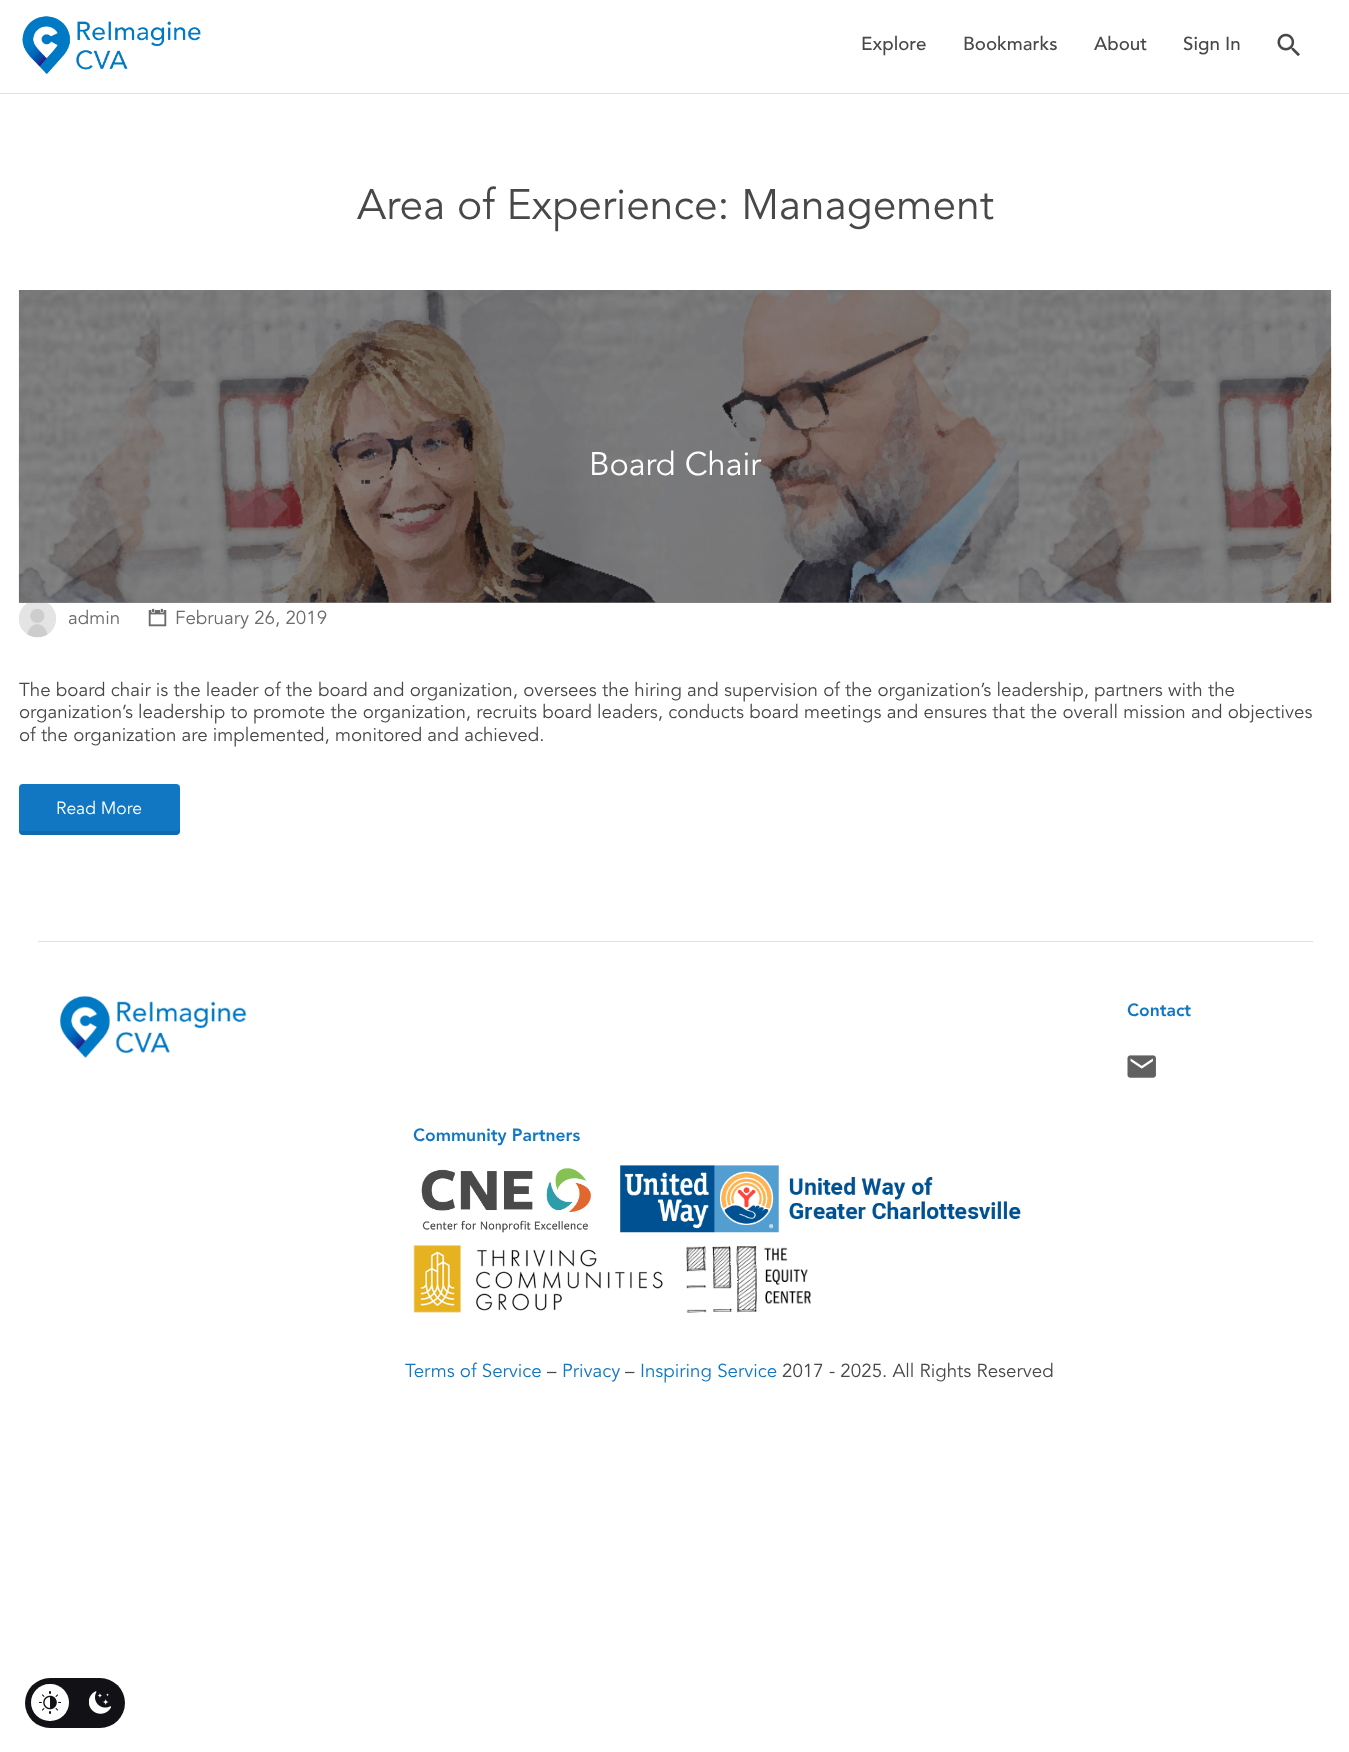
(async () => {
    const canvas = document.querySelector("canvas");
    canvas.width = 1349;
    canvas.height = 1752;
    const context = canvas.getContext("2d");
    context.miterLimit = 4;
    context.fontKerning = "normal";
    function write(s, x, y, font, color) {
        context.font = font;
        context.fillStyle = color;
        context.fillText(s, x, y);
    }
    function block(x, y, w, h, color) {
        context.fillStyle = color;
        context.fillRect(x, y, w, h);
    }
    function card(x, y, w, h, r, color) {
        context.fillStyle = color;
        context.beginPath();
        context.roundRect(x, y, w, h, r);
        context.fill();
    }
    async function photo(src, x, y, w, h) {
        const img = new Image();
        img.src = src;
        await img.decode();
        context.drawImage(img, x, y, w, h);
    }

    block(0, 0, 1349, 1752, "rgb(255, 255, 255)");
    block(0, 93, 1349, 1, "rgb(220, 224, 224)");
    await photo("media/1.png", 22, 16, 179, 59);
    write("Explore", 861, 50, "500 18.75px Avenir", "rgb(72, 72, 72)");
    write("Bookmarks", 963, 50, "500 18.75px Avenir", "rgb(72, 72, 72)");
    write("About", 1094, 50, "500 18.75px Avenir", "rgb(72, 72, 72)");
    write("Sign In", 1183, 50, "500 18.75px Avenir", "rgb(72, 72, 72)");
    await photo("media/2.png", 1277, 33, 23, 24);
    write("Area of Experience: Management", 357, 219, "42.5px Avenir", "rgb(72, 72, 72)");
    await photo("media/3.png", 18, 290, 1314, 313);
    block(19, 290, 1312, 313, "rgba(0, 0, 0, 0.45)");
    write("Board Chair", 589, 475, "32.5px Avenir", "rgb(255, 255, 255)");
    await photo("media/4.png", 19, 603, 37, 35);
    write("admin", 68, 624, "18.75px Avenir", "rgb(107, 107, 107)");
    await photo("media/5.png", 148, 608, 19, 19);
    write("February 26, 2019", 175, 624, "18.75px Avenir", "rgb(107, 107, 107)");
    write("The board chair is the leader of the board and organization, oversees the hiring and supervision of the organization’s leadership, partners with the", 19, 696, "18.75px Avenir", "rgb(72, 72, 72)");
    write("organization’s leadership to promote the organization, recruits board leaders, conducts board meetings and ensures that the overall mission and objectives", 19, 718, "18.75px Avenir", "rgb(72, 72, 72)");
    write("of the organization are implemented, monitored and achieved.", 19, 741, "18.75px Avenir", "rgb(72, 72, 72)");
    card(19, 784, 161, 51, 4, "rgb(17, 119, 194)");
    context.fillStyle = "rgba(0, 0, 0, 0.1)";
    context.beginPath();
    context.moveTo(19, 828);
    context.lineTo(19, 831);
    context.bezierCurveTo(19, 833, 21, 835, 23, 835);
    context.lineTo(176, 835);
    context.bezierCurveTo(178, 835, 180, 833, 180, 831);
    context.lineTo(180, 828);
    context.bezierCurveTo(180, 830, 178, 831, 176, 831);
    context.lineTo(22, 831);
    context.bezierCurveTo(20, 831, 19, 830, 19, 828);
    context.closePath();
    context.fill();
    write("Read More", 56, 814, "17.5px Avenir", "rgb(255, 255, 255)");
    block(38, 941, 1275, 1, "rgb(220, 224, 224)");
    await photo("media/6.png", 59, 995, 188, 63);
    write("Contact", 1127, 1016, "900 17.5px Avenir", "rgb(17, 119, 194)");
    await photo("media/7.png", 1127, 1055, 29, 23);
    write("Community Partners", 413, 1141, "900 17.5px Avenir", "rgb(17, 119, 194)");
    await photo("media/8.png", 421, 1168, 170, 65);
    await photo("media/9.png", 620, 1165, 401, 68);
    await photo("media/10.png", 413, 1245, 250, 68);
    await photo("media/11.png", 686, 1245, 125, 68);
    write("Terms of Service", 405, 1377, "18.75px Avenir", "rgb(17, 119, 194)");
    write("–", 547, 1377, "18.75px Avenir", "rgb(72, 72, 72)");
    write("Privacy", 562, 1377, "18.75px Avenir", "rgb(17, 119, 194)");
    write("–", 625, 1377, "18.75px Avenir", "rgb(72, 72, 72)");
    write("Inspiring Service", 640, 1377, "18.75px Avenir", "rgb(17, 119, 194)");
    write("2017 - 2025. All Rights Reserved", 782, 1377, "18.75px Avenir", "rgb(72, 72, 72)");
    card(25, 1678, 100, 50, 25, "rgb(18, 17, 22)");
    card(31, 1684, 38, 37, 18.5, "rgb(255, 255, 255)");
    await photo("media/12.png", 39, 1691, 22, 23);
    await photo("media/13.png", 89, 1691, 22, 23);
})();
